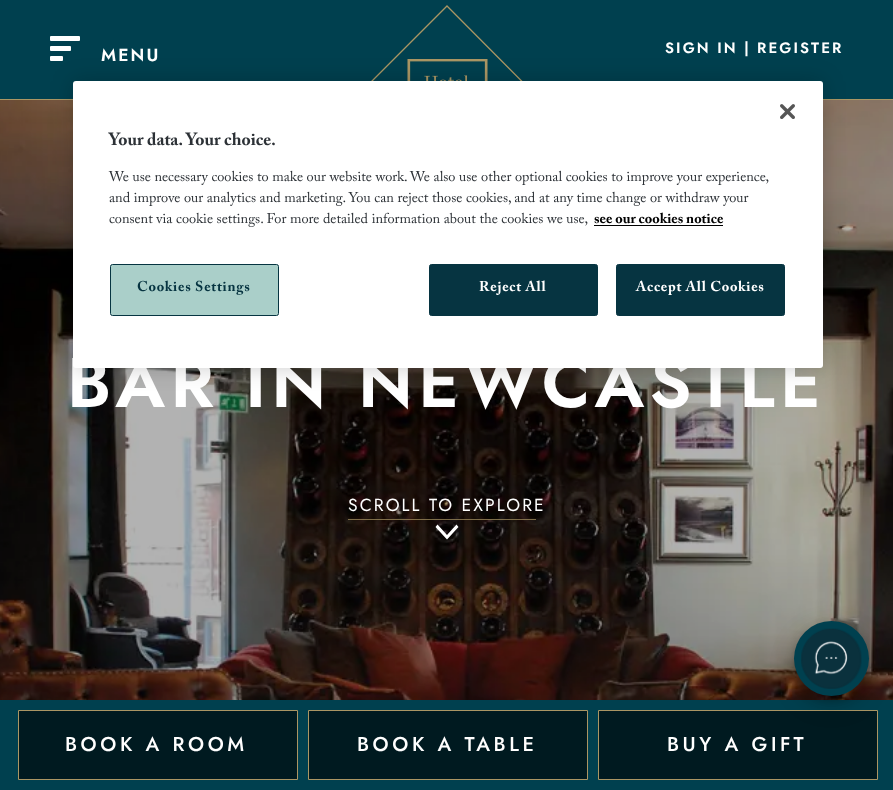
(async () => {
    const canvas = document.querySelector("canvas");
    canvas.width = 893;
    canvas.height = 790;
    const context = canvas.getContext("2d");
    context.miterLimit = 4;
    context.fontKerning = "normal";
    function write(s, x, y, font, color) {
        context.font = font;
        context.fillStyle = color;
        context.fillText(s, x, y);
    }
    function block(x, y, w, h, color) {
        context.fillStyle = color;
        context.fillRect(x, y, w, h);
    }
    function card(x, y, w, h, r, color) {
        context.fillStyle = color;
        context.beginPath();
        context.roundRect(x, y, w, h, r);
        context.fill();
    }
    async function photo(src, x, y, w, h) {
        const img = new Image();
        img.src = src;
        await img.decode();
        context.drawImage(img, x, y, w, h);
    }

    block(0, 0, 893, 790, "rgb(255, 255, 255)");
    block(0, 0, 893, 99, "rgb(0, 64, 79)");
    block(0, 99, 893, 1, "rgb(170, 150, 100)");
    card(50, 46, 21, 5, 1, "rgb(255, 255, 255)");
    card(50, 36, 30, 5, 1, "rgb(255, 255, 255)");
    card(50, 56, 13, 5, 1, "rgb(255, 255, 255)");
    context.letterSpacing = "2.1px";
    write("MENU", 101, 61, "600 17.5px Jost", "rgb(255, 255, 255)");
    await photo("media/2.png", 0, 100, 893, 600);
    context.fillStyle = "rgb(0, 64, 79)";
    context.beginPath();
    context.moveTo(447, 5);
    context.lineTo(541, 99);
    context.lineTo(447, 192);
    context.lineTo(353, 99);
    context.closePath();
    context.fill();
    context.beginPath();
    context.moveTo(447, 6);
    context.lineTo(539.5, 99);
    context.lineTo(447, 191.5);
    context.lineTo(354, 99);
    context.closePath();
    context.strokeStyle = "rgb(170, 150, 100)";
    context.lineWidth = 1.3;
    context.stroke();
    await photo("media/1.png", 407, 59, 81, 22);
    write("SIGN IN", 665, 53, "600 15px Jost", "rgb(255, 255, 255)");
    write("|", 744, 53, "600 15px Jost", "rgb(255, 255, 255)");
    write("REGISTER", 757, 53, "600 15px Jost", "rgb(255, 255, 255)");
    context.letterSpacing = "5.25px";
    write("BAR IN NEWCASTLE", 67, 407, "600 70px Jost", "rgb(255, 255, 255)");
    context.letterSpacing = "2.1px";
    write("SCROLL TO EXPLORE", 348, 511, "17.5px Jost", "rgb(255, 255, 255)");
    block(348, 519, 188, 1, "rgba(170, 150, 100, 0.7)");
    context.fillStyle = "rgb(255, 255, 255)";
    context.beginPath();
    context.moveTo(447, 539.5);
    context.lineTo(435.5, 527);
    context.lineTo(437.5, 524.5);
    context.lineTo(447, 535);
    context.lineTo(456.5, 524.5);
    context.lineTo(458.5, 527);
    context.closePath();
    context.fill();
    block(0, 700, 893, 90, "rgb(0, 64, 79)");
    context.fillStyle = "rgb(0, 26, 32)";
    context.beginPath();
    context.rect(18.5, 710.5, 279, 69);
    context.fill();
    context.lineWidth = 1;
    context.stroke();
    context.letterSpacing = "3.6px";
    write("BOOK A ROOM", 65, 751, "500 20px Jost", "rgb(255, 255, 255)");
    context.fillStyle = "rgb(0, 26, 32)";
    context.beginPath();
    context.rect(308.5, 710.5, 279, 69);
    context.fill();
    context.stroke();
    write("BOOK A TABLE", 357, 751, "500 20px Jost", "rgb(255, 255, 255)");
    context.fillStyle = "rgb(0, 26, 32)";
    context.beginPath();
    context.rect(598.5, 710.5, 279, 69);
    context.fill();
    context.stroke();
    write("BUY A GIFT", 667, 751, "500 20px Jost", "rgb(255, 255, 255)");
    context.fillStyle = "rgba(0, 0, 0, 0.2)";
    context.filter = "blur(11px)";
    context.beginPath();
    context.roundRect(73, 81, 750, 287, 3);
    context.fill();
    context.filter = "none";
    card(73, 81, 750, 287, 3, "rgb(255, 255, 255)");
    await photo("media/3.png", 780, 104, 15, 15);
    context.letterSpacing = "0px";
    write("Your data. Your choice.", 109, 145, "bold 17.5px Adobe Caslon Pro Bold", "rgb(44, 49, 54)");
    write("We use necessary cookies to make our website work. We also use other optional cookies to improve your experience,", 109, 181, "14.25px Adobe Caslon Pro", "rgb(44, 49, 54)");
    write("and improve our analytics and marketing. You can reject those cookies, and at any time change or withdraw your", 109, 202, "14.25px Adobe Caslon Pro", "rgb(44, 49, 54)");
    write("consent via cookie settings. For more detailed information about the cookies we use,", 109, 223, "14.25px Adobe Caslon Pro", "rgb(44, 49, 54)");
    write("see our cookies notice", 594, 223, "bold 14.25px Adobe Caslon Pro Bold", "rgb(0, 0, 0)");
    block(594, 225, 129, 1, "rgb(0, 0, 0)");
    context.fillStyle = "rgb(170, 207, 201)";
    context.beginPath();
    context.roundRect(110.5, 264.5, 168, 51, 2);
    context.fill();
    context.strokeStyle = "rgb(6, 52, 65)";
    context.stroke();
    context.letterSpacing = "0.75px";
    write("Cookies Settings", 137, 291, "bold 14.25px Adobe Caslon Pro Bold", "rgb(6, 52, 65)");
    context.beginPath();
    context.roundRect(429.5, 264.5, 168, 51, 2);
    context.fill();
    context.stroke();
    write("Reject All", 479, 291, "bold 14.25px Adobe Caslon Pro Bold", "rgb(255, 255, 255)");
    context.fillStyle = "rgb(6, 52, 65)";
    context.beginPath();
    context.roundRect(616.5, 264.5, 168, 51, 2);
    context.fill();
    context.stroke();
    write("Accept All Cookies", 636, 291, "bold 14.25px Adobe Caslon Pro Bold", "rgb(255, 255, 255)");
    context.fillStyle = "rgba(0, 0, 0, 0.19)";
    context.filter = "blur(12.5px)";
    context.beginPath();
    context.roundRect(794, 629, 75, 75, 37.5);
    context.fill();
    context.filter = "none";
    context.fillStyle = "rgba(0, 0, 0, 0.2)";
    context.filter = "blur(5px)";
    context.beginPath();
    context.roundRect(794, 626, 75, 75, 37.5);
    context.fill();
    context.filter = "none";
    context.fillStyle = "rgb(0, 64, 79)";
    context.beginPath();
    context.arc(831.5, 658.5, 37.5, 0, Math.PI * 2);
    context.fill();
    await photo("media/4.png", 801, 628, 61, 61);
})();
